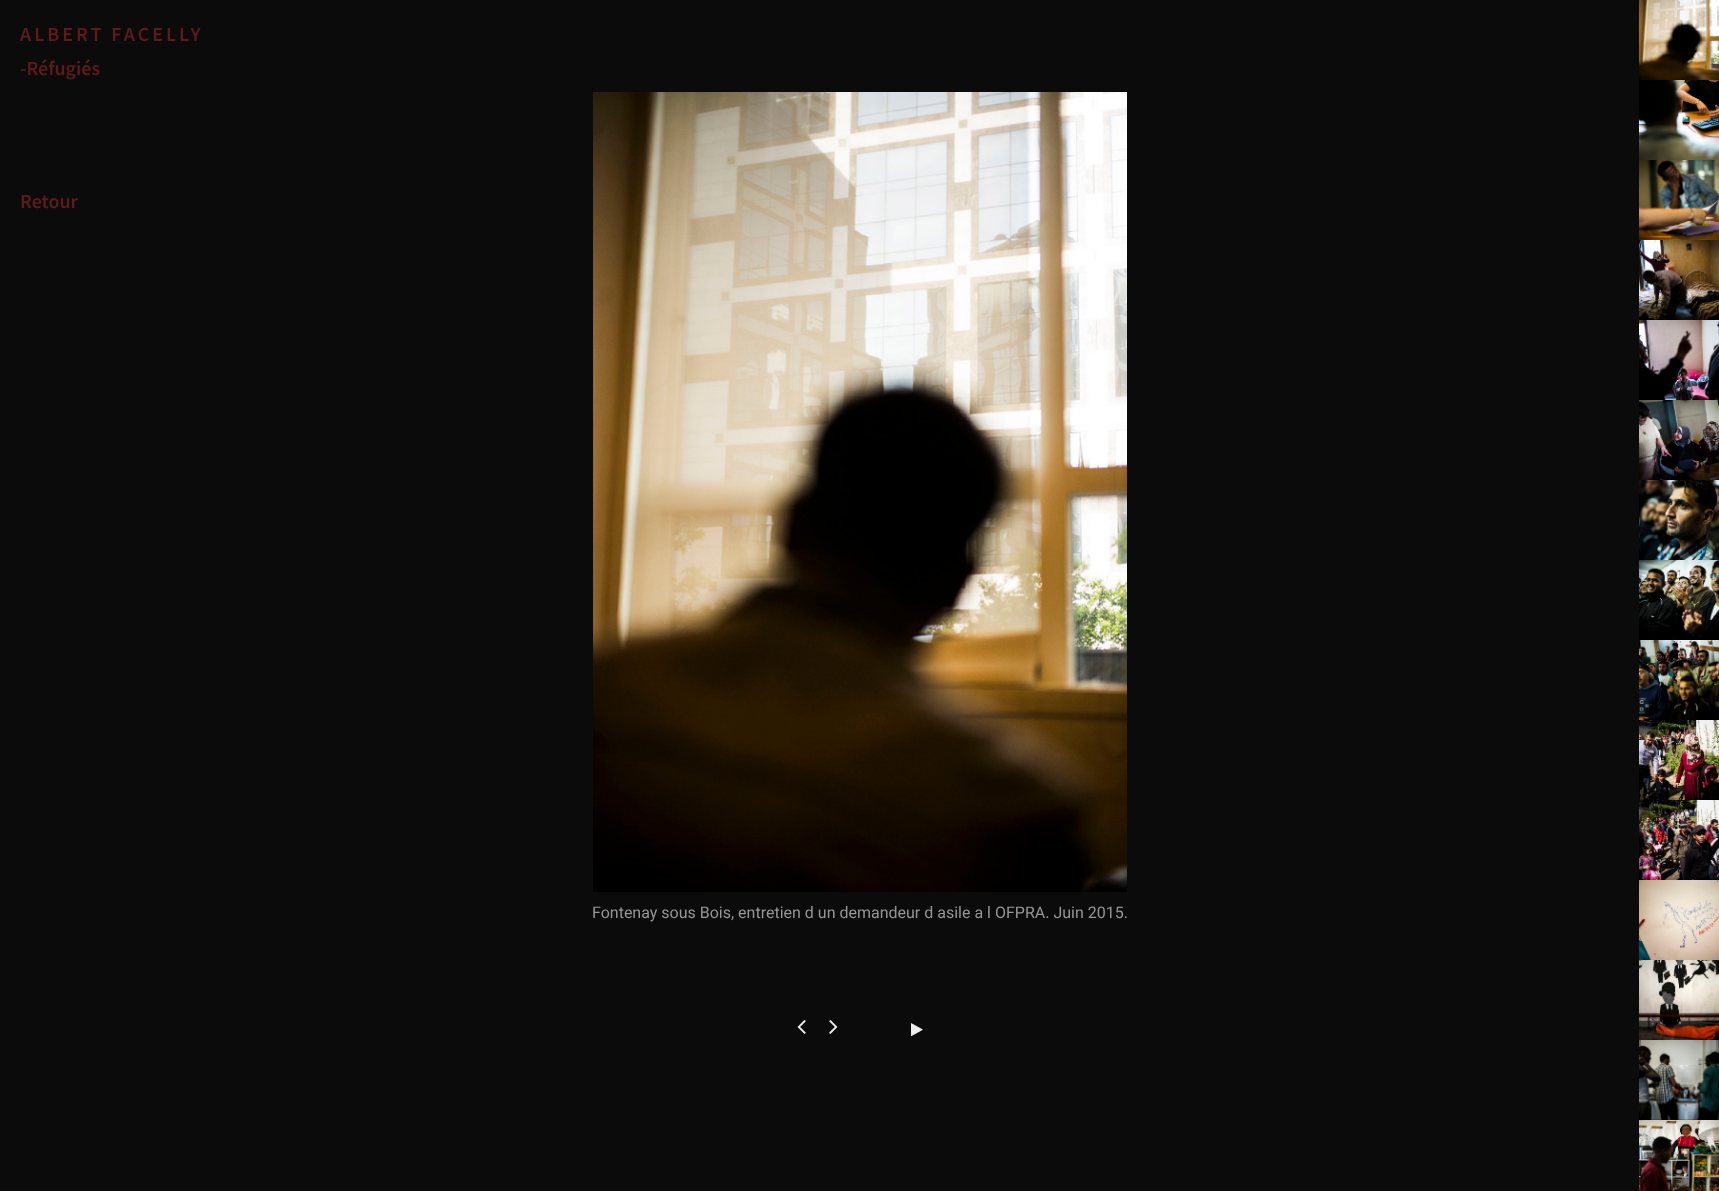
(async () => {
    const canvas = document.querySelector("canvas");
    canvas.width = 1719;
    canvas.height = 1191;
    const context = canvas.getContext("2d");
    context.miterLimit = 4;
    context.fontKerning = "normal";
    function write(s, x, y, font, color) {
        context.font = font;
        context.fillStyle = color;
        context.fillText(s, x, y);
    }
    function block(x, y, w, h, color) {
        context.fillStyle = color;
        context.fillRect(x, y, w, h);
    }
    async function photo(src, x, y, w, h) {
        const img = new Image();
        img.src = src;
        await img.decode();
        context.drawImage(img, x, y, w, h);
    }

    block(0, 0, 1719, 1191, "rgb(11, 11, 11)");
    context.letterSpacing = "3px";
    write("ALBERT FACELLY", 20, 41, "600 20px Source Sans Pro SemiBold", "rgb(96, 26, 26)");
    context.letterSpacing = "0px";
    write("-Réfugiés", 20, 75, "600 20px Source Sans Pro SemiBold", "rgb(96, 26, 26)");
    write("Retour", 20, 208, "600 20px Source Sans Pro SemiBold", "rgb(96, 26, 26)");
    await photo("media/1.png", 1639, 0, 80, 80);
    await photo("media/2.png", 1639, 80, 80, 80);
    await photo("media/3.png", 1639, 160, 80, 80);
    await photo("media/4.png", 1639, 240, 80, 80);
    await photo("media/5.png", 1639, 320, 80, 80);
    await photo("media/6.png", 1639, 400, 80, 80);
    await photo("media/7.png", 1639, 480, 80, 80);
    await photo("media/8.png", 1639, 560, 80, 80);
    await photo("media/9.png", 1639, 640, 80, 80);
    await photo("media/10.png", 1639, 720, 80, 80);
    await photo("media/11.png", 1639, 800, 80, 80);
    await photo("media/12.png", 1639, 880, 80, 80);
    await photo("media/13.png", 1639, 960, 80, 80);
    await photo("media/14.png", 1639, 1040, 80, 80);
    await photo("media/15.png", 1639, 1120, 80, 71);
    await photo("media/16.png", 593, 92, 534, 800);
    write("Fontenay sous Bois, entretien d un demandeur d asile a l OFPRA. Juin 2015.", 592, 918, "16px Roboto", "rgb(150, 150, 150)");
    await photo("media/17.png", 797, 1020, 9, 14);
    await photo("media/18.png", 829, 1020, 9, 14);
    await photo("media/19.png", 911, 1023, 12, 14);
})();
